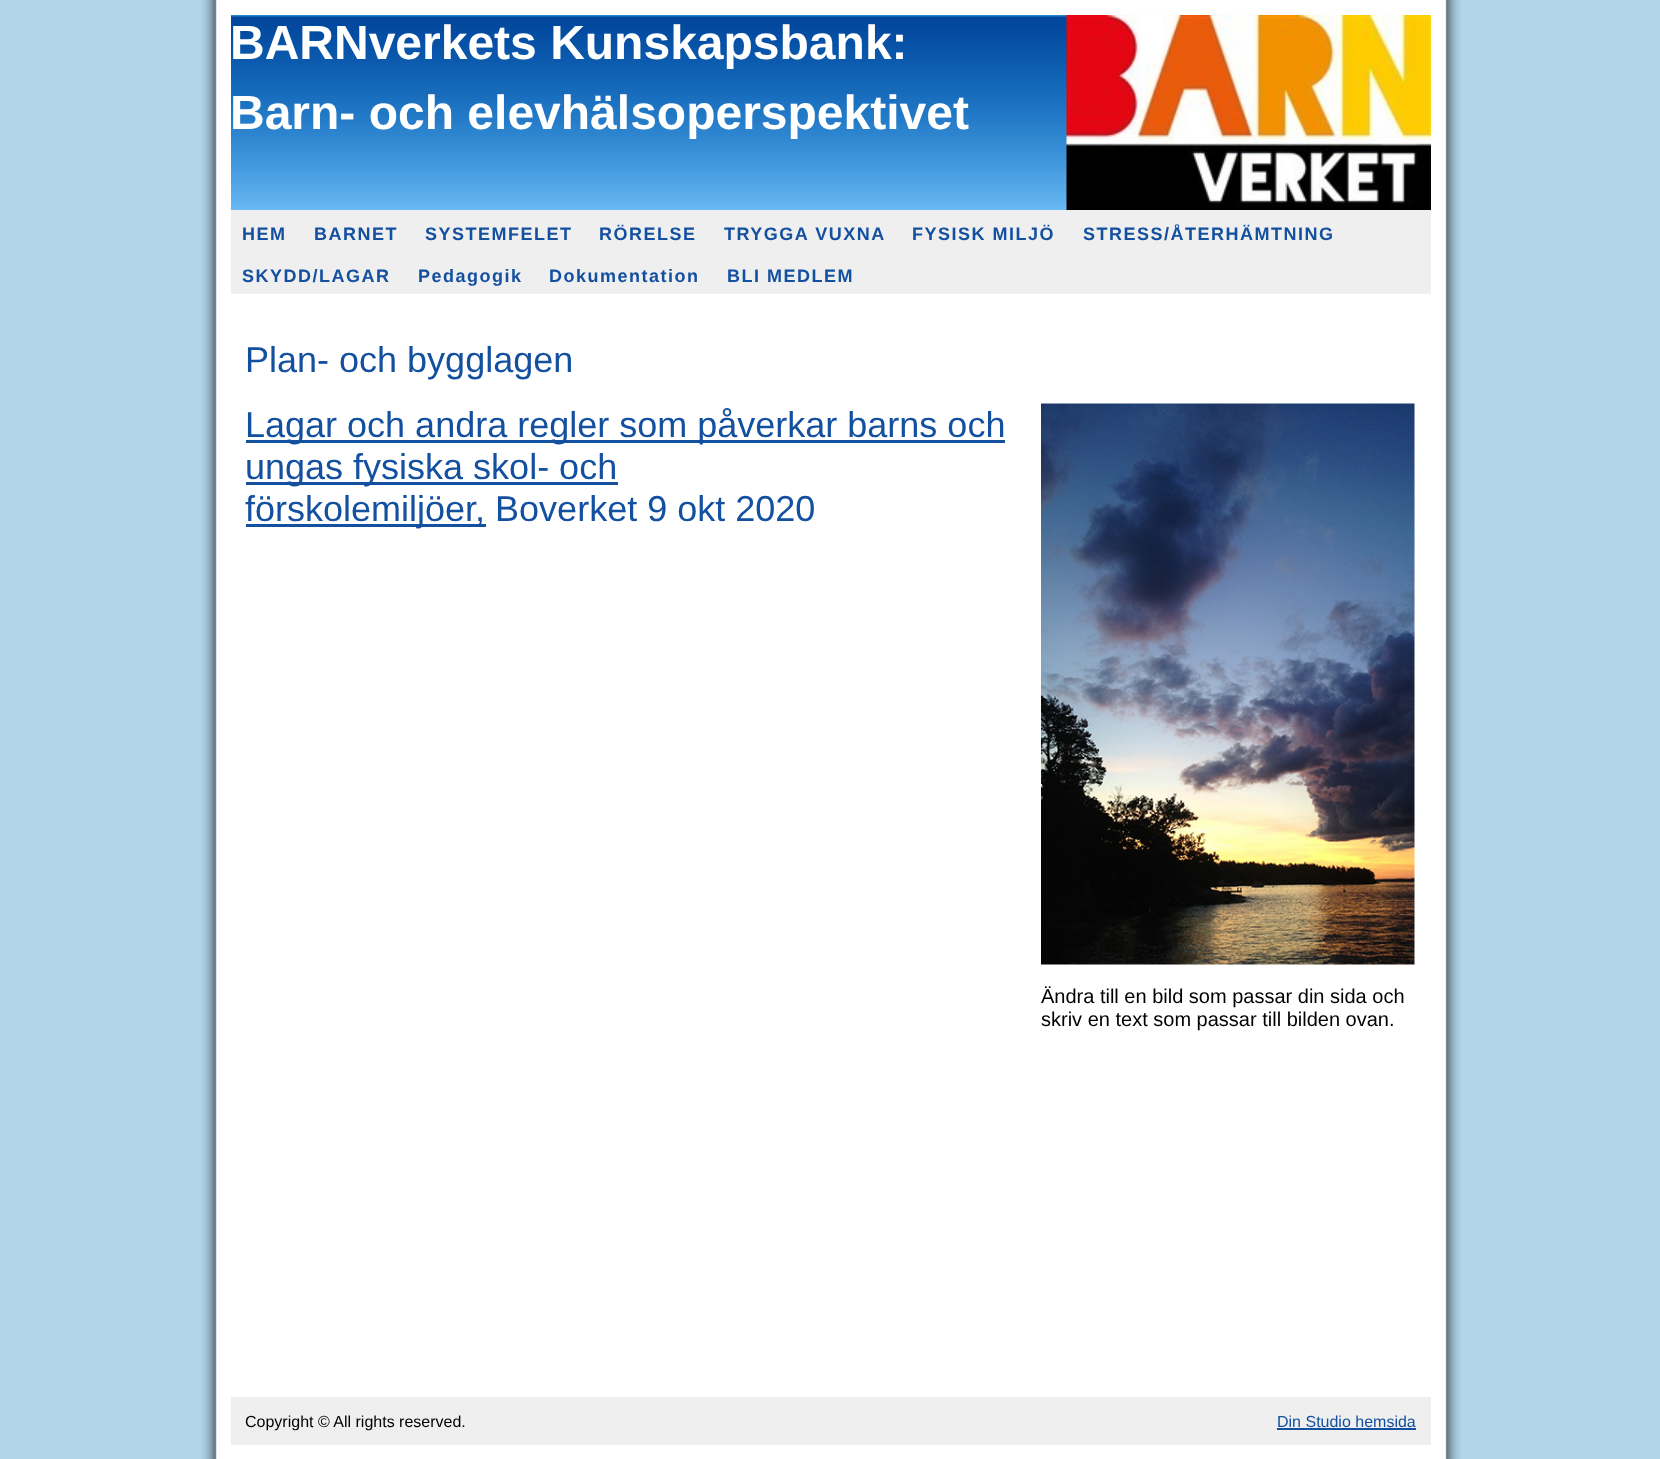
(async () => {
    const canvas = document.querySelector("canvas");
    canvas.width = 1660;
    canvas.height = 1459;
    const context = canvas.getContext("2d");
    context.miterLimit = 4;
    context.fontKerning = "normal";
    function write(s, x, y, font, color) {
        context.font = font;
        context.fillStyle = color;
        context.fillText(s, x, y);
    }
    function block(x, y, w, h, color) {
        context.fillStyle = color;
        context.fillRect(x, y, w, h);
    }
    async function photo(src, x, y, w, h) {
        const img = new Image();
        img.src = src;
        await img.decode();
        context.drawImage(img, x, y, w, h);
    }

    block(0, 0, 1660, 1459, "rgb(178, 213, 234)");
    await photo("media/1.png", 201, 0, 1260, 1459);
    block(231, 207, 836, 3, "rgb(106, 185, 245)");
    await photo("media/2.png", 231, 15, 836, 192);
    write("BARNverkets Kunskapsbank:", 230, 59, "bold 48px Liberation Sans", "rgb(255, 255, 255)");
    write("Barn- och elevhälsoperspektivet", 230, 129, "bold 48px Liberation Sans", "rgb(255, 255, 255)");
    await photo("media/3.png", 1066, 15, 365, 195);
    block(231, 210, 1200, 84, "rgb(239, 239, 239)");
    context.letterSpacing = "1.5px";
    write("HEM", 242, 240, "bold 18px Liberation Sans", "rgb(20, 80, 160)");
    write("BARNET", 314, 240, "bold 18px Liberation Sans", "rgb(20, 80, 160)");
    write("SYSTEMFELET", 425, 240, "bold 18px Liberation Sans", "rgb(20, 80, 160)");
    write("RÖRELSE", 599, 240, "bold 18px Liberation Sans", "rgb(20, 80, 160)");
    write("TRYGGA VUXNA", 724, 240, "bold 18px Liberation Sans", "rgb(20, 80, 160)");
    write("FYSISK MILJÖ", 912, 240, "bold 18px Liberation Sans", "rgb(20, 80, 160)");
    write("STRESS/ÅTERHÄMTNING", 1083, 240, "bold 18px Liberation Sans", "rgb(20, 80, 160)");
    write("SKYDD/LAGAR", 242, 282, "bold 18px Liberation Sans", "rgb(20, 80, 160)");
    write("Pedagogik", 418, 282, "bold 18px Liberation Sans", "rgb(20, 80, 160)");
    write("Dokumentation", 549, 282, "bold 18px Liberation Sans", "rgb(20, 80, 160)");
    write("BLI MEDLEM", 727, 282, "bold 18px Liberation Sans", "rgb(20, 80, 160)");
    context.letterSpacing = "0px";
    write("Plan- och bygglagen", 245, 372, "36px Liberation Sans", "rgb(20, 80, 160)");
    block(246, 440, 759, 3, "rgb(20, 80, 160)");
    write("Lagar och andra regler som påverkar barns och", 245, 437, "36px Liberation Sans", "rgb(20, 80, 160)");
    block(246, 482, 372, 3, "rgb(20, 80, 160)");
    write("ungas fysiska skol- och", 245, 479, "36px Liberation Sans", "rgb(20, 80, 160)");
    block(246, 524, 240, 3, "rgb(20, 80, 160)");
    write("förskolemiljöer, Boverket 9 okt 2020", 245, 521, "36px Liberation Sans", "rgb(20, 80, 160)");
    await photo("media/4.png", 1041, 403, 374, 562);
    write("Ändra till en bild som passar din sida och", 1041, 1003, "20px Liberation Sans", "rgb(0, 0, 0)");
    write("skriv en text som passar till bilden ovan.", 1041, 1026, "20px Liberation Sans", "rgb(0, 0, 0)");
    block(231, 1397, 1200, 48, "rgb(239, 239, 239)");
    write("Copyright © All rights reserved.", 245, 1427, "16px Liberation Sans", "rgb(0, 0, 0)");
    write("Din Studio hemsida", 1277, 1427, "16px Liberation Sans", "rgb(20, 80, 160)");
    block(1277, 1428, 139, 2, "rgb(20, 80, 160)");
})();
